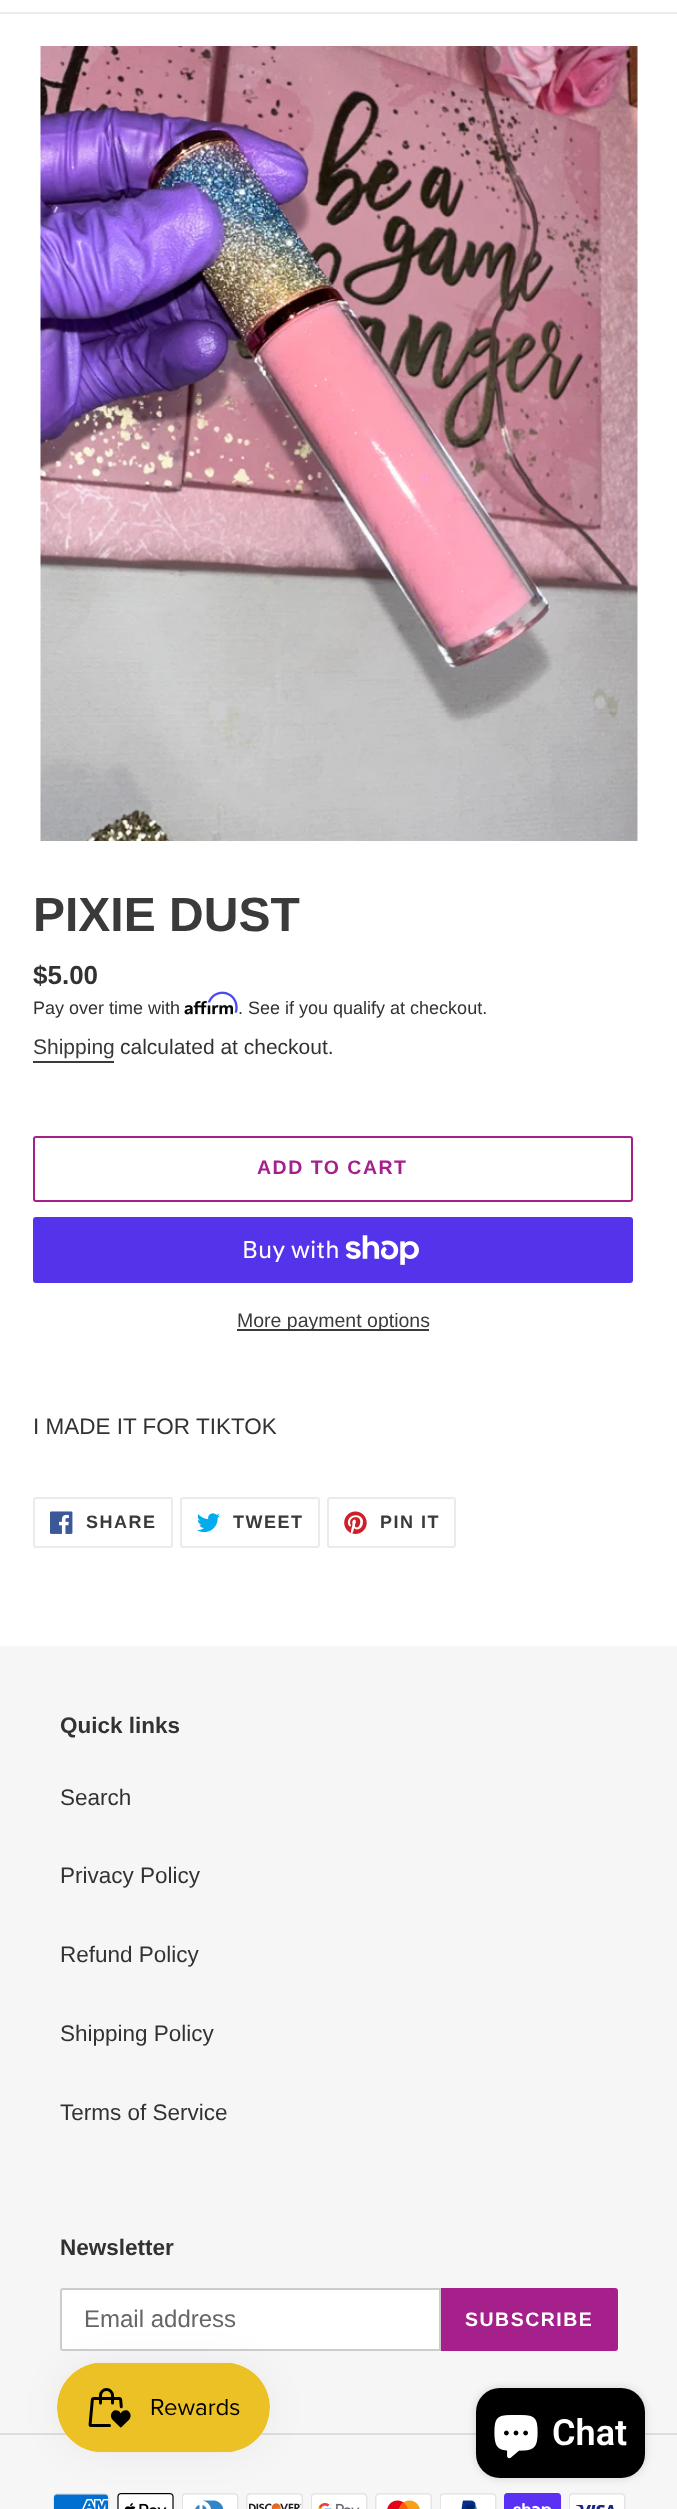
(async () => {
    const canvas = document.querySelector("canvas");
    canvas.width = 677;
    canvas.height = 2509;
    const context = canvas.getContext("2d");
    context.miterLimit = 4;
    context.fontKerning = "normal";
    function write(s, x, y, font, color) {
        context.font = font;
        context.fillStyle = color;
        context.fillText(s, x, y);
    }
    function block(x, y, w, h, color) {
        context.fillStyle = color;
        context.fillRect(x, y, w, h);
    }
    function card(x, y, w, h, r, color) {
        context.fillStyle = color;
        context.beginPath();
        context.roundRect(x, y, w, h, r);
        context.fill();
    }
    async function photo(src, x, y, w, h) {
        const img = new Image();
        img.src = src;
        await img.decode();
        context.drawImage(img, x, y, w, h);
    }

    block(0, 0, 677, 2509, "rgb(255, 255, 255)");
    block(0, 12, 677, 2, "rgb(235, 235, 235)");
    await photo("media/1.png", 40, 46, 598, 795);
    write("PIXIE DUST", 33, 931, "bold 48px Liberation Sans", "rgb(58, 58, 58)");
    write("$5.00", 33, 984, "bold 26px Liberation Sans", "rgb(51, 50, 50)");
    write("Pay over time with", 33, 1014, "18px Liberation Sans", "rgb(51, 50, 50)");
    await photo("media/3.png", 184, 1001, 49, 14);
    await photo("media/2.png", 207, 991, 31, 22);
    write(". See if you qualify at checkout.", 238, 1014, "18px Liberation Sans", "rgb(51, 50, 50)");
    write("Shipping", 33, 1054, "21px Liberation Sans", "rgb(58, 58, 58)");
    block(33, 1061, 81, 2, "rgb(58, 58, 58)");
    write("calculated at checkout.", 120, 1054, "21px Liberation Sans", "rgb(51, 50, 50)");
    context.beginPath();
    context.roundRect(34, 1137, 598, 64, 2);
    context.strokeStyle = "rgb(166, 32, 140)";
    context.lineWidth = 2;
    context.stroke();
    context.letterSpacing = "1.5px";
    write("ADD TO CART", 257, 1174, "bold 19.5px Liberation Sans", "rgb(166, 32, 140)");
    card(33, 1217, 600, 66, 3, "rgb(84, 51, 235)");
    context.letterSpacing = "0px";
    write("Buy with", 242, 1258, "24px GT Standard", "rgb(255, 255, 255)");
    await photo("media/4.png", 345, 1235, 74, 30);
    block(237, 1329, 192, 2, "rgb(58, 58, 58)");
    write("More payment options", 237, 1327, "19.5px Liberation Sans", "rgb(58, 58, 58)");
    write("I MADE IT FOR TIKTOK", 33, 1434, "22.5px Liberation Sans", "rgb(51, 50, 50)");
    context.beginPath();
    context.roundRect(34, 1498, 138, 49, 2);
    context.strokeStyle = "rgb(235, 235, 235)";
    context.stroke();
    await photo("media/5.png", 50, 1511, 23, 23);
    context.letterSpacing = "1.5px";
    write("SHARE", 86, 1528, "bold 18px Liberation Sans", "rgb(58, 58, 58)");
    context.beginPath();
    context.roundRect(181, 1498, 138, 49, 2);
    context.stroke();
    await photo("media/6.png", 197, 1513, 23, 20);
    write("TWEET", 233, 1528, "bold 18px Liberation Sans", "rgb(58, 58, 58)");
    context.beginPath();
    context.roundRect(328, 1498, 127, 49, 2);
    context.stroke();
    await photo("media/7.png", 344, 1511, 23, 23);
    write("PIN IT", 380, 1528, "bold 18px Liberation Sans", "rgb(58, 58, 58)");
    block(0, 1646, 677, 863, "rgb(246, 246, 246)");
    context.letterSpacing = "0px";
    write("Quick links", 60, 1733, "bold 22.5px Liberation Sans", "rgb(51, 50, 50)");
    write("Search", 60, 1805, "22.5px Liberation Sans", "rgb(51, 50, 50)");
    write("Privacy Policy", 60, 1883, "22.5px Liberation Sans", "rgb(51, 50, 50)");
    write("Refund Policy", 60, 1962, "22.5px Liberation Sans", "rgb(51, 50, 50)");
    write("Shipping Policy", 60, 2041, "22.5px Liberation Sans", "rgb(51, 50, 50)");
    write("Terms of Service", 60, 2120, "22.5px Liberation Sans", "rgb(51, 50, 50)");
    write("Newsletter", 60, 2255, "bold 22.5px Liberation Sans", "rgb(51, 50, 50)");
    context.fillStyle = "rgb(255, 255, 255)";
    context.beginPath();
    context.roundRect(61, 2289, 379, 61, [2, 0, 0, 2]);
    context.fill();
    context.strokeStyle = "rgb(204, 204, 204)";
    context.stroke();
    write("Email address", 84, 2327, "24px Liberation Sans", "rgb(102, 102, 102)");
    context.fillStyle = "rgb(166, 32, 140)";
    context.beginPath();
    context.roundRect(441, 2288, 177, 63, [0, 3, 3, 0]);
    context.fill();
    context.letterSpacing = "1.5px";
    write("SUBSCRIBE", 465, 2326, "bold 19.5px Liberation Sans", "rgb(255, 255, 255)");
    block(0, 2433, 677, 2, "rgb(221, 221, 221)");
    await photo("media/8.png", 53, 2493, 57, 16);
    await photo("media/9.png", 117, 2493, 57, 16);
    await photo("media/10.png", 182, 2493, 57, 16);
    await photo("media/11.png", 246, 2493, 57, 16);
    await photo("media/12.png", 311, 2493, 57, 16);
    await photo("media/13.png", 375, 2493, 57, 16);
    await photo("media/14.png", 440, 2493, 57, 16);
    await photo("media/15.png", 504, 2493, 57, 16);
    await photo("media/16.png", 569, 2493, 57, 16);
    context.fillStyle = "rgba(0, 0, 0, 0.05)";
    context.filter = "blur(19px)";
    context.beginPath();
    context.roundRect(57, 2363, 213, 90, 45);
    context.fill();
    context.filter = "none";
    await photo("media/17.png", 57, 2362, 213, 91);
    context.fillStyle = "rgba(0, 0, 0, 0.15)";
    context.filter = "blur(4px)";
    context.beginPath();
    context.roundRect(476, 2388, 169, 90, 24);
    context.fill();
    context.filter = "none";
    card(476, 2388, 169, 90, 24, "rgb(0, 0, 0)");
    await photo("media/18.png", 494, 2415, 44, 44);
    context.letterSpacing = "0px";
    write("Chat", 552, 2445, "600 36px Roboto", "rgb(255, 255, 255)");
})();
